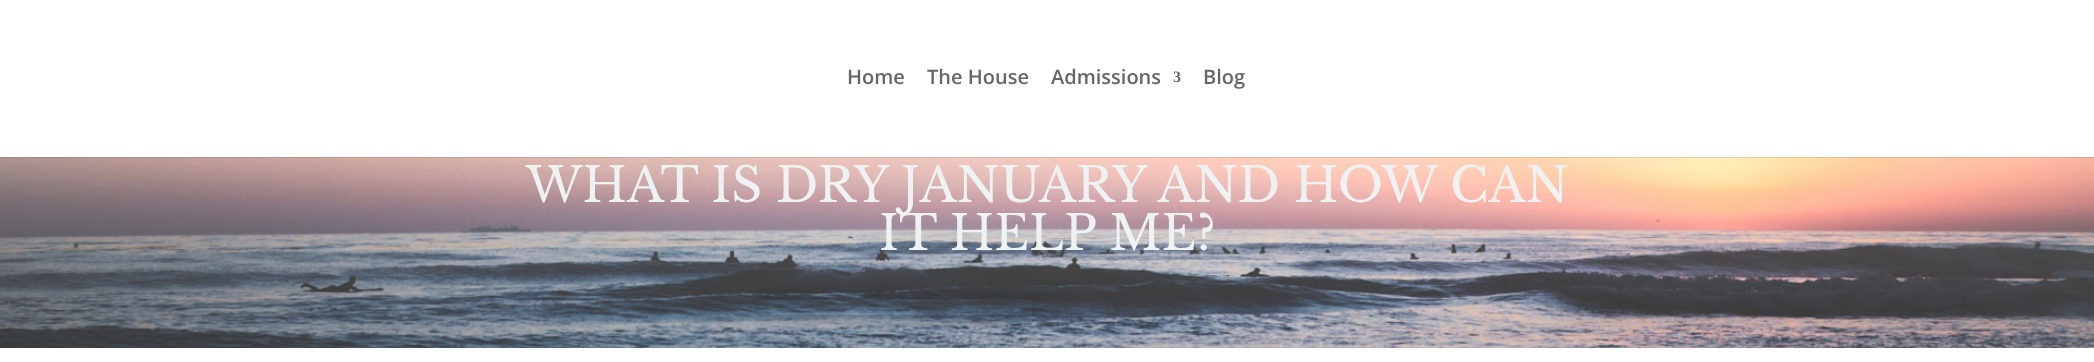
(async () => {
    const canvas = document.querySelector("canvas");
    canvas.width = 2094;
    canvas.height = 362;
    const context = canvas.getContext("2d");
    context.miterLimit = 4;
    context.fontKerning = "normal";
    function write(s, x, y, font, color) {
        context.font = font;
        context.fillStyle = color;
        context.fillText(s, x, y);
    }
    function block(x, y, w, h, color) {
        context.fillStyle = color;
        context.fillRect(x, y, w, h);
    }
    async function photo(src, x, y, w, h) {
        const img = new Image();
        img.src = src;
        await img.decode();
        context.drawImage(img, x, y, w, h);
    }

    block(0, 0, 2094, 362, "rgb(255, 255, 255)");
    await photo("media/1.png", 0, 157, 2094, 191);
    block(0, 157, 2094, 1, "rgba(0, 0, 0, 0.1)");
    write("Home", 847, 84, "600 20px Open Sans", "rgb(102, 102, 102)");
    write("The House", 927, 84, "600 20px Open Sans", "rgb(102, 102, 102)");
    write("Admissions", 1051, 84, "600 20px Open Sans", "rgb(102, 102, 102)");
    write("3", 1173, 82, "bold 16px Liberation Serif", "rgb(102, 102, 102)");
    write("Blog", 1203, 84, "600 20px Open Sans", "rgb(102, 102, 102)");
    write("WHAT IS DRY JANUARY AND HOW CAN", 526, 202, "48px Libre Baskerville", "rgb(239, 242, 242)");
    write("IT HELP ME?", 879, 250, "48px Libre Baskerville", "rgb(239, 242, 242)");
    context.save();
    context.beginPath();
    context.moveTo(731, 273);
    context.lineTo(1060, 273);
    context.lineTo(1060, 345);
    context.lineTo(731, 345);
    context.closePath();
    context.moveTo(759, 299);
    context.lineTo(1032, 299);
    context.lineTo(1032, 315);
    context.lineTo(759, 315);
    context.closePath();
    context.clip("evenodd");
    context.fillStyle = "rgba(0, 0, 0, 0.3)";
    context.filter = "blur(9px)";
    context.beginPath();
    context.rect(759, 301, 273, 16);
    context.fill();
    context.filter = "none";
    context.restore();
})();
